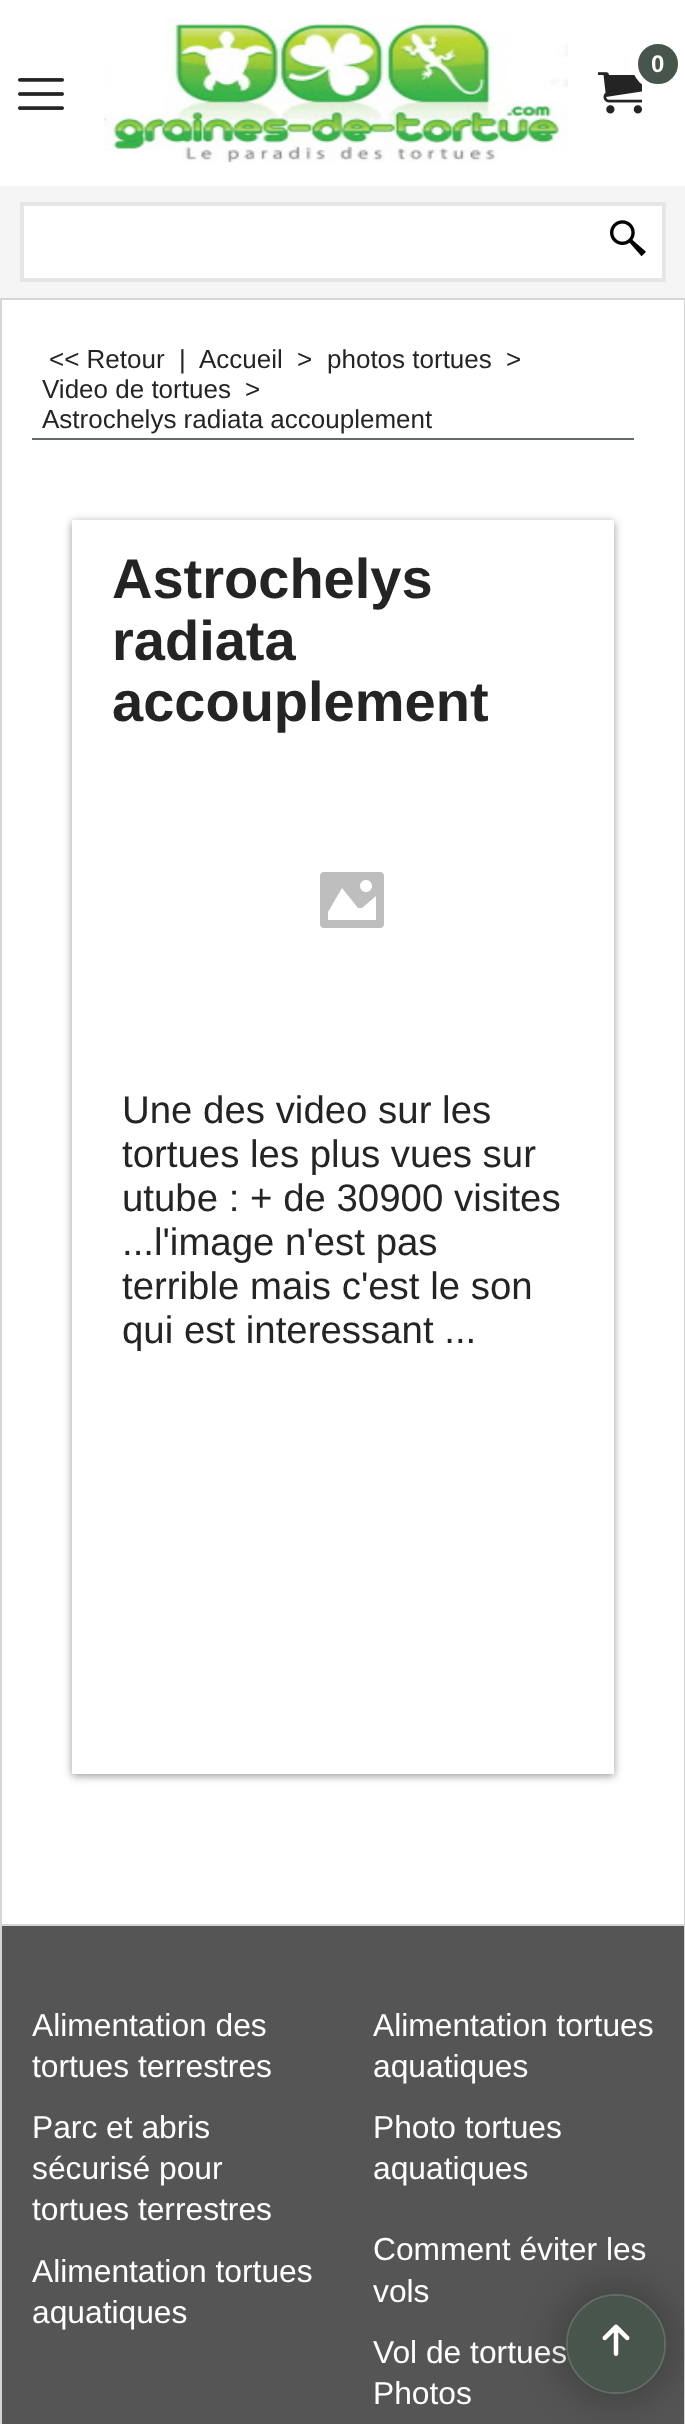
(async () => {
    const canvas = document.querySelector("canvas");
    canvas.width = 685;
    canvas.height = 2424;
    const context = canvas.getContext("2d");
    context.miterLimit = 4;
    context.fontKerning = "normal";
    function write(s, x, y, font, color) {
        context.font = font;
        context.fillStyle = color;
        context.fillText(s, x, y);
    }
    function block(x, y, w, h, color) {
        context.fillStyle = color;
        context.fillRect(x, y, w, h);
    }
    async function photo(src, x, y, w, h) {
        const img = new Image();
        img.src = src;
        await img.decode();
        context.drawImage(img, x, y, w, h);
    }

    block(0, 0, 685, 2424, "rgb(255, 255, 255)");
    await photo("media/1.png", 104, 18, 464, 145);
    await photo("media/2.png", 598, 72, 44, 42);
    context.fillStyle = "rgb(72, 85, 77)";
    context.beginPath();
    context.arc(658, 64, 23, 0, Math.PI * 2);
    context.fill();
    context.strokeStyle = "rgb(255, 255, 255)";
    context.lineWidth = 6;
    context.stroke();
    write("0", 651, 72, "bold 24px Liberation Sans", "rgb(255, 255, 255)");
    await photo("media/3.png", 18, 78, 46, 32);
    block(0, 186, 685, 112, "rgb(245, 245, 246)");
    context.fillStyle = "rgb(255, 255, 255)";
    context.beginPath();
    context.rect(22, 204, 642, 76);
    context.fill();
    context.strokeStyle = "rgb(230, 230, 230)";
    context.lineWidth = 4;
    context.stroke();
    await photo("media/4.png", 610, 220, 36, 37);
    context.strokeStyle = "rgb(213, 213, 213)";
    context.lineWidth = 2;
    context.strokeRect(1, 299, 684, 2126);
    block(32, 438, 602, 2, "rgb(98, 109, 102)");
    write("<< Retour", 49, 368, "26px Liberation Sans", "rgb(36, 36, 36)");
    write("|", 179, 368, "26px Liberation Sans", "rgb(36, 36, 36)");
    write("Accueil", 199, 368, "26px Liberation Sans", "rgb(36, 36, 36)");
    write(">", 297, 368, "26px Liberation Sans", "rgb(36, 36, 36)");
    write("photos tortues", 327, 368, "26px Liberation Sans", "rgb(36, 36, 36)");
    write(">", 506, 368, "26px Liberation Sans", "rgb(36, 36, 36)");
    write("Video de tortues", 42, 398, "26px Liberation Sans", "rgb(36, 36, 36)");
    write(">", 245, 398, "26px Liberation Sans", "rgb(36, 36, 36)");
    write("Astrochelys radiata accouplement", 42, 428, "26px Liberation Sans", "rgb(36, 36, 36)");
    context.save();
    context.beginPath();
    context.moveTo(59, 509);
    context.lineTo(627, 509);
    context.lineTo(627, 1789);
    context.lineTo(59, 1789);
    context.closePath();
    context.moveTo(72, 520);
    context.lineTo(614, 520);
    context.lineTo(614, 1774);
    context.lineTo(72, 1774);
    context.closePath();
    context.clip("evenodd");
    context.fillStyle = "rgba(50, 50, 50, 0.5)";
    context.filter = "blur(4px)";
    context.beginPath();
    context.rect(72, 522, 542, 1254);
    context.fill();
    context.filter = "none";
    context.restore();
    write("Astrochelys", 112, 598, "bold 56px Liberation Sans", "rgb(36, 36, 36)");
    write("radiata", 112, 660, "bold 56px Liberation Sans", "rgb(36, 36, 36)");
    write("accouplement", 112, 721, "bold 56px Liberation Sans", "rgb(36, 36, 36)");
    await photo("media/5.png", 320, 872, 64, 56);
    write("Une des video sur les", 122, 1123, "38.4px Liberation Sans", "rgb(36, 36, 36)");
    write("tortues les plus vues sur", 122, 1167, "38.4px Liberation Sans", "rgb(36, 36, 36)");
    write("utube : + de 30900 visites", 122, 1211, "38.4px Liberation Sans", "rgb(36, 36, 36)");
    write("...l'image n'est pas", 122, 1255, "38.4px Liberation Sans", "rgb(36, 36, 36)");
    write("terrible mais c'est le son", 122, 1299, "38.4px Liberation Sans", "rgb(36, 36, 36)");
    write("qui est interessant ...", 122, 1343, "38.4px Liberation Sans", "rgb(36, 36, 36)");
    block(2, 1924, 682, 2, "rgb(213, 213, 213)");
    block(2, 1926, 682, 498, "rgb(85, 85, 85)");
    write("Alimentation des", 32, 2036, "31.75px Liberation Sans", "rgb(255, 255, 255)");
    write("tortues terrestres", 32, 2077, "31.75px Liberation Sans", "rgb(255, 255, 255)");
    write("Parc et abris", 32, 2138, "31.75px Liberation Sans", "rgb(255, 255, 255)");
    write("sécurisé pour", 32, 2179, "31.75px Liberation Sans", "rgb(255, 255, 255)");
    write("tortues terrestres", 32, 2220, "31.75px Liberation Sans", "rgb(255, 255, 255)");
    write("Alimentation tortues", 32, 2282, "31.75px Liberation Sans", "rgb(255, 255, 255)");
    write("aquatiques", 32, 2323, "31.75px Liberation Sans", "rgb(255, 255, 255)");
    write("Alimentation tortues", 373, 2036, "31.75px Liberation Sans", "rgb(255, 255, 255)");
    write("aquatiques", 373, 2077, "31.75px Liberation Sans", "rgb(255, 255, 255)");
    write("Photo tortues", 373, 2138, "31.75px Liberation Sans", "rgb(255, 255, 255)");
    write("aquatiques", 373, 2179, "31.75px Liberation Sans", "rgb(255, 255, 255)");
    write("Comment éviter les", 373, 2260, "31.75px Liberation Sans", "rgb(255, 255, 255)");
    write("vols", 373, 2302, "31.75px Liberation Sans", "rgb(255, 255, 255)");
    write("Vol de tortues", 373, 2363, "31.75px Liberation Sans", "rgb(255, 255, 255)");
    write("Photos", 373, 2404, "31.75px Liberation Sans", "rgb(255, 255, 255)");
    context.fillStyle = "rgba(0, 0, 0, 0.2)";
    context.filter = "blur(17px)";
    context.beginPath();
    context.roundRect(554, 2282, 124, 124, 62);
    context.fill();
    context.filter = "none";
    context.beginPath();
    context.arc(616, 2344, 49, 0, Math.PI * 2);
    context.strokeStyle = "rgb(98, 109, 102)";
    context.stroke();
    context.fillStyle = "rgb(72, 85, 77)";
    context.beginPath();
    context.arc(616, 2344, 48, 0, Math.PI * 2);
    context.fill();
    await photo("media/6.png", 602, 2324, 28, 32);
})();
